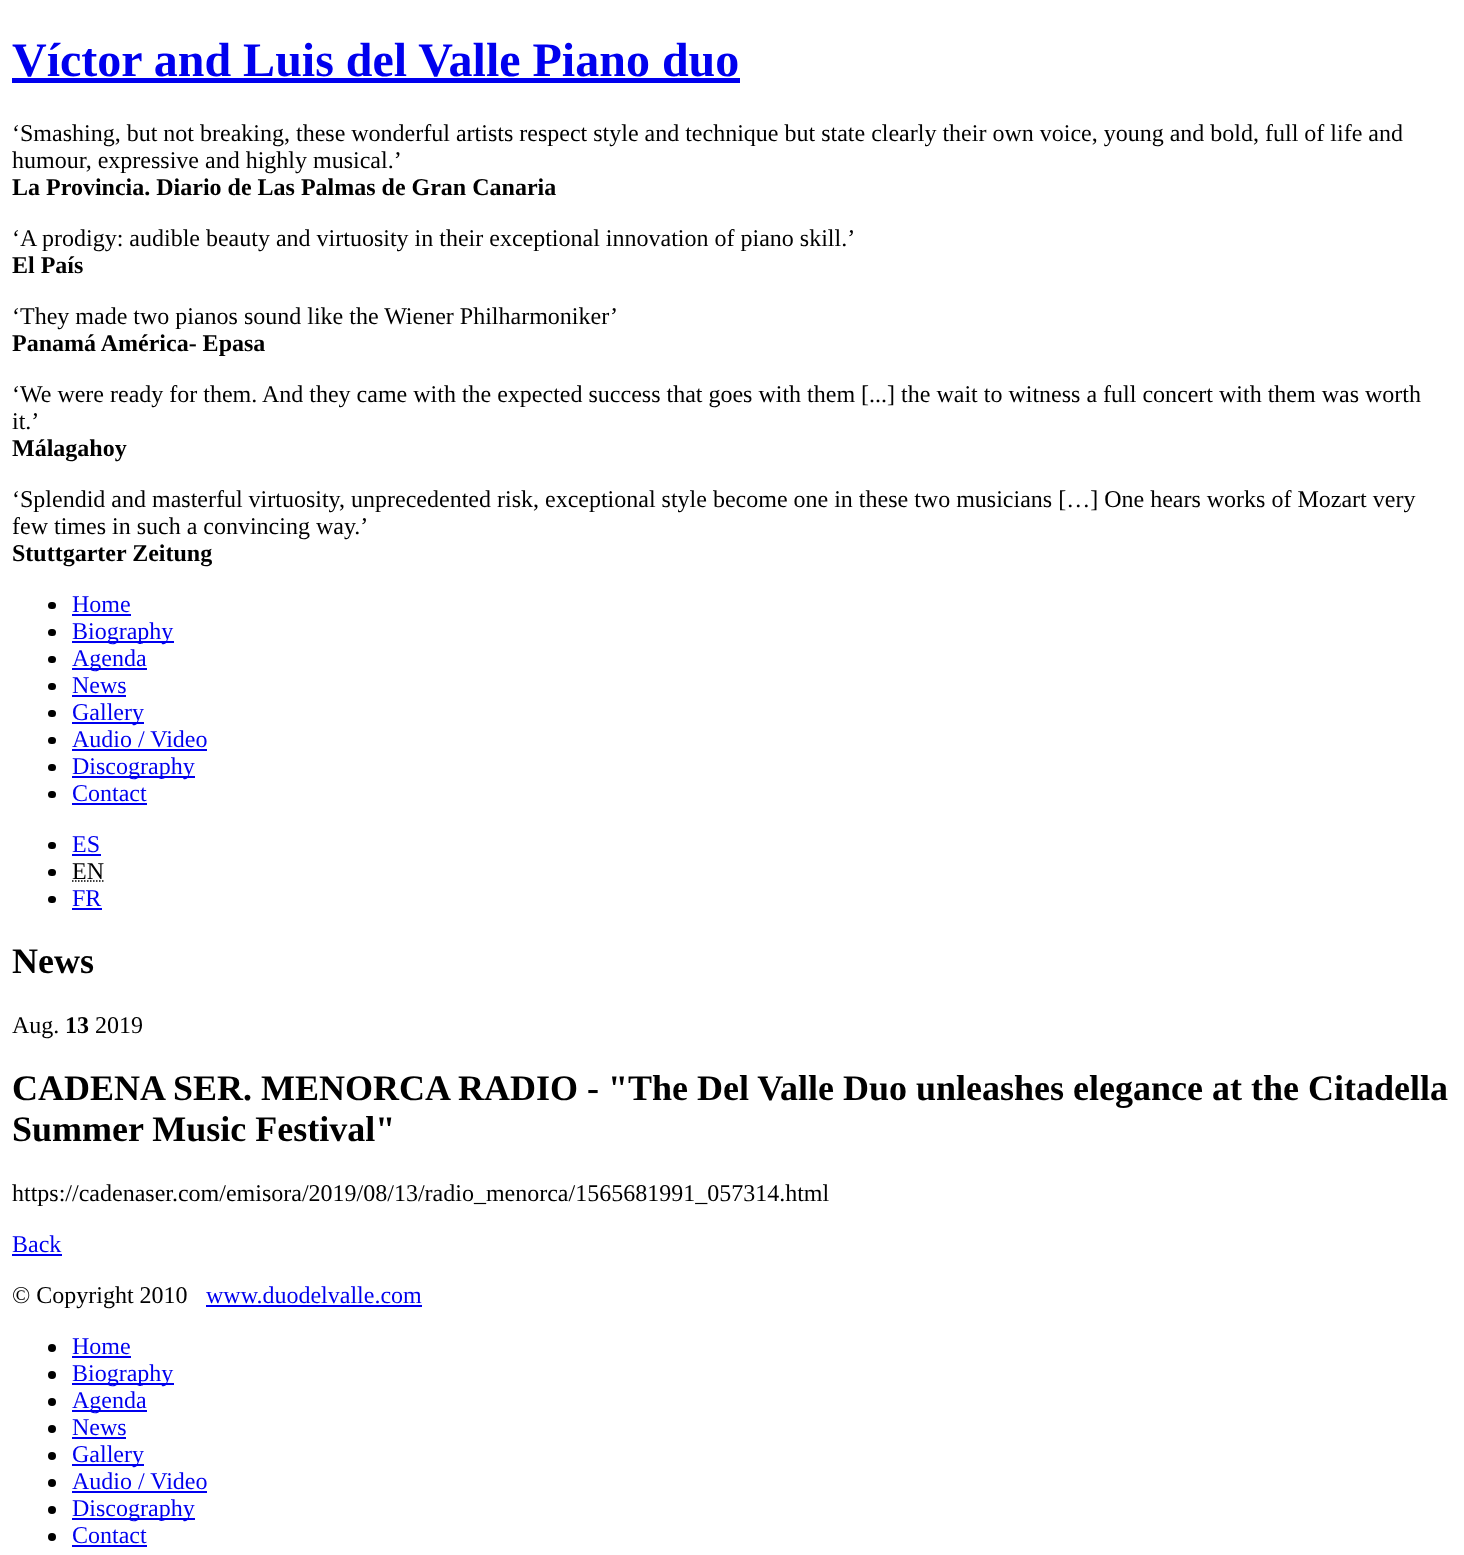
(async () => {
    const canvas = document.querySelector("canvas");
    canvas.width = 1464;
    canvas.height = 1555;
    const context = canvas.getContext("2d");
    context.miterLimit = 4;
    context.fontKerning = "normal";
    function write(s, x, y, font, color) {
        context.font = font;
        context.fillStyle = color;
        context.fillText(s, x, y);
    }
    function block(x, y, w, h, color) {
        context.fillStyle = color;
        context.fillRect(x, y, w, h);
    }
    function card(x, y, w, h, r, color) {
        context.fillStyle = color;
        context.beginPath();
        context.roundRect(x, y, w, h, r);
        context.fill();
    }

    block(0, 0, 1464, 1555, "rgb(255, 255, 255)");
    write("Víctor and Luis del Valle Piano duo", 12, 76, "bold 48px Liberation Serif", "rgb(0, 0, 238)");
    block(12, 78, 728, 5, "rgb(0, 0, 238)");
    write("‘Smashing, but not breaking, these wonderful artists respect style and technique but state clearly their own voice, young and bold, full of life and", 12, 141, "24px Liberation Serif", "rgb(0, 0, 0)");
    write("humour, expressive and highly musical.’", 12, 168, "24px Liberation Serif", "rgb(0, 0, 0)");
    write("La Provincia. Diario de Las Palmas de Gran Canaria", 12, 195, "bold 24px Liberation Serif", "rgb(0, 0, 0)");
    write("‘A prodigy: audible beauty and virtuosity in their exceptional innovation of piano skill.’", 12, 246, "24px Liberation Serif", "rgb(0, 0, 0)");
    write("El País", 12, 273, "bold 24px Liberation Serif", "rgb(0, 0, 0)");
    write("‘They made two pianos sound like the Wiener Philharmoniker’", 12, 324, "24px Liberation Serif", "rgb(0, 0, 0)");
    write("Panamá América- Epasa", 12, 351, "bold 24px Liberation Serif", "rgb(0, 0, 0)");
    write("‘We were ready for them. And they came with the expected success that goes with them [...] the wait to witness a full concert with them was worth", 12, 402, "24px Liberation Serif", "rgb(0, 0, 0)");
    write("it.’", 12, 429, "24px Liberation Serif", "rgb(0, 0, 0)");
    write("Málagahoy", 12, 456, "bold 24px Liberation Serif", "rgb(0, 0, 0)");
    write("‘Splendid and masterful virtuosity, unprecedented risk, exceptional style become one in these two musicians […] One hears works of Mozart very", 12, 507, "24px Liberation Serif", "rgb(0, 0, 0)");
    write("few times in such a convincing way.’", 12, 534, "24px Liberation Serif", "rgb(0, 0, 0)");
    write("Stuttgarter Zeitung", 12, 561, "bold 24px Liberation Serif", "rgb(0, 0, 0)");
    card(48, 602, 8, 7, 3.5, "rgb(0, 0, 0)");
    write("Home", 72, 612, "24px Liberation Serif", "rgb(0, 0, 238)");
    block(72, 614, 59, 2, "rgb(0, 0, 238)");
    card(48, 629, 8, 7, 3.5, "rgb(0, 0, 0)");
    block(72, 641, 102, 2, "rgb(0, 0, 238)");
    write("Biography", 72, 639, "24px Liberation Serif", "rgb(0, 0, 238)");
    card(48, 656, 8, 7, 3.5, "rgb(0, 0, 0)");
    block(72, 668, 75, 2, "rgb(0, 0, 238)");
    write("Agenda", 72, 666, "24px Liberation Serif", "rgb(0, 0, 238)");
    card(48, 683, 8, 7, 3.5, "rgb(0, 0, 0)");
    write("News", 72, 693, "24px Liberation Serif", "rgb(0, 0, 238)");
    block(72, 695, 54, 2, "rgb(0, 0, 238)");
    card(48, 710, 8, 7, 3.5, "rgb(0, 0, 0)");
    block(72, 722, 72, 2, "rgb(0, 0, 238)");
    write("Gallery", 72, 720, "24px Liberation Serif", "rgb(0, 0, 238)");
    card(48, 737, 8, 7, 3.5, "rgb(0, 0, 0)");
    write("Audio / Video", 72, 747, "24px Liberation Serif", "rgb(0, 0, 238)");
    block(72, 749, 135, 2, "rgb(0, 0, 238)");
    card(48, 764, 8, 7, 3.5, "rgb(0, 0, 0)");
    block(72, 776, 123, 2, "rgb(0, 0, 238)");
    write("Discography", 72, 774, "24px Liberation Serif", "rgb(0, 0, 238)");
    card(48, 791, 8, 7, 3.5, "rgb(0, 0, 0)");
    write("Contact", 72, 801, "24px Liberation Serif", "rgb(0, 0, 238)");
    block(72, 803, 75, 2, "rgb(0, 0, 238)");
    card(48, 842, 8, 7, 3.5, "rgb(0, 0, 0)");
    write("ES", 72, 852, "24px Liberation Serif", "rgb(0, 0, 238)");
    block(72, 854, 29, 2, "rgb(0, 0, 238)");
    card(48, 869, 8, 7, 3.5, "rgb(0, 0, 0)");
    write("EN", 72, 879, "24px Liberation Serif", "rgb(0, 0, 0)");
    context.beginPath();
    context.moveTo(72, 881);
    context.lineTo(104, 881);
    context.strokeStyle = "rgb(0, 0, 0)";
    context.lineWidth = 1.5;
    context.setLineDash([1.5, 1.5]);
    context.stroke();
    card(48, 896, 8, 7, 3.5, "rgb(0, 0, 0)");
    write("FR", 72, 906, "24px Liberation Serif", "rgb(0, 0, 238)");
    block(72, 908, 30, 2, "rgb(0, 0, 238)");
    write("News", 12, 973, "bold 36px Liberation Serif", "rgb(0, 0, 0)");
    write("Aug.", 12, 1033, "24px Liberation Serif", "rgb(0, 0, 0)");
    write("13", 65, 1033, "bold 24px Liberation Serif", "rgb(0, 0, 0)");
    write("2019", 95, 1033, "24px Liberation Serif", "rgb(0, 0, 0)");
    write("CADENA SER. MENORCA RADIO - \"The Del Valle Duo unleashes elegance at the Citadella", 12, 1100, "bold 36px Liberation Serif", "rgb(0, 0, 0)");
    write("Summer Music Festival\"", 12, 1141, "bold 36px Liberation Serif", "rgb(0, 0, 0)");
    write("https://cadenaser.com/emisora/2019/08/13/radio_menorca/1565681991_057314.html", 12, 1201, "24px Liberation Serif", "rgb(0, 0, 0)");
    write("Back", 12, 1252, "24px Liberation Serif", "rgb(0, 0, 238)");
    block(12, 1254, 50, 2, "rgb(0, 0, 238)");
    write("© Copyright 2010", 12, 1303, "24px Liberation Serif", "rgb(0, 0, 0)");
    write("www.duodelvalle.com", 206, 1303, "24px Liberation Serif", "rgb(0, 0, 238)");
    block(206, 1305, 216, 2, "rgb(0, 0, 238)");
    context.fillStyle = "rgb(0, 0, 0)";
    context.beginPath();
    context.arc(52, 1348, 4, 0, Math.PI * 2);
    context.fill();
    write("Home", 72, 1354, "24px Liberation Serif", "rgb(0, 0, 238)");
    block(72, 1356, 59, 2, "rgb(0, 0, 238)");
    context.fillStyle = "rgb(0, 0, 0)";
    context.beginPath();
    context.arc(52, 1375, 4, 0, Math.PI * 2);
    context.fill();
    block(72, 1383, 102, 2, "rgb(0, 0, 238)");
    write("Biography", 72, 1381, "24px Liberation Serif", "rgb(0, 0, 238)");
    context.fillStyle = "rgb(0, 0, 0)";
    context.beginPath();
    context.arc(52, 1402, 4, 0, Math.PI * 2);
    context.fill();
    block(72, 1410, 75, 2, "rgb(0, 0, 238)");
    write("Agenda", 72, 1408, "24px Liberation Serif", "rgb(0, 0, 238)");
    context.fillStyle = "rgb(0, 0, 0)";
    context.beginPath();
    context.arc(52, 1429, 4, 0, Math.PI * 2);
    context.fill();
    write("News", 72, 1435, "24px Liberation Serif", "rgb(0, 0, 238)");
    block(72, 1437, 54, 2, "rgb(0, 0, 238)");
    context.fillStyle = "rgb(0, 0, 0)";
    context.beginPath();
    context.arc(52, 1456, 4, 0, Math.PI * 2);
    context.fill();
    block(72, 1464, 72, 2, "rgb(0, 0, 238)");
    write("Gallery", 72, 1462, "24px Liberation Serif", "rgb(0, 0, 238)");
    context.fillStyle = "rgb(0, 0, 0)";
    context.beginPath();
    context.arc(52, 1483, 4, 0, Math.PI * 2);
    context.fill();
    write("Audio / Video", 72, 1489, "24px Liberation Serif", "rgb(0, 0, 238)");
    block(72, 1491, 135, 2, "rgb(0, 0, 238)");
    context.fillStyle = "rgb(0, 0, 0)";
    context.beginPath();
    context.arc(52, 1510, 4, 0, Math.PI * 2);
    context.fill();
    block(72, 1518, 123, 2, "rgb(0, 0, 238)");
    write("Discography", 72, 1516, "24px Liberation Serif", "rgb(0, 0, 238)");
    context.fillStyle = "rgb(0, 0, 0)";
    context.beginPath();
    context.arc(52, 1537, 4, 0, Math.PI * 2);
    context.fill();
    write("Contact", 72, 1543, "24px Liberation Serif", "rgb(0, 0, 238)");
    block(72, 1545, 75, 2, "rgb(0, 0, 238)");
})();
